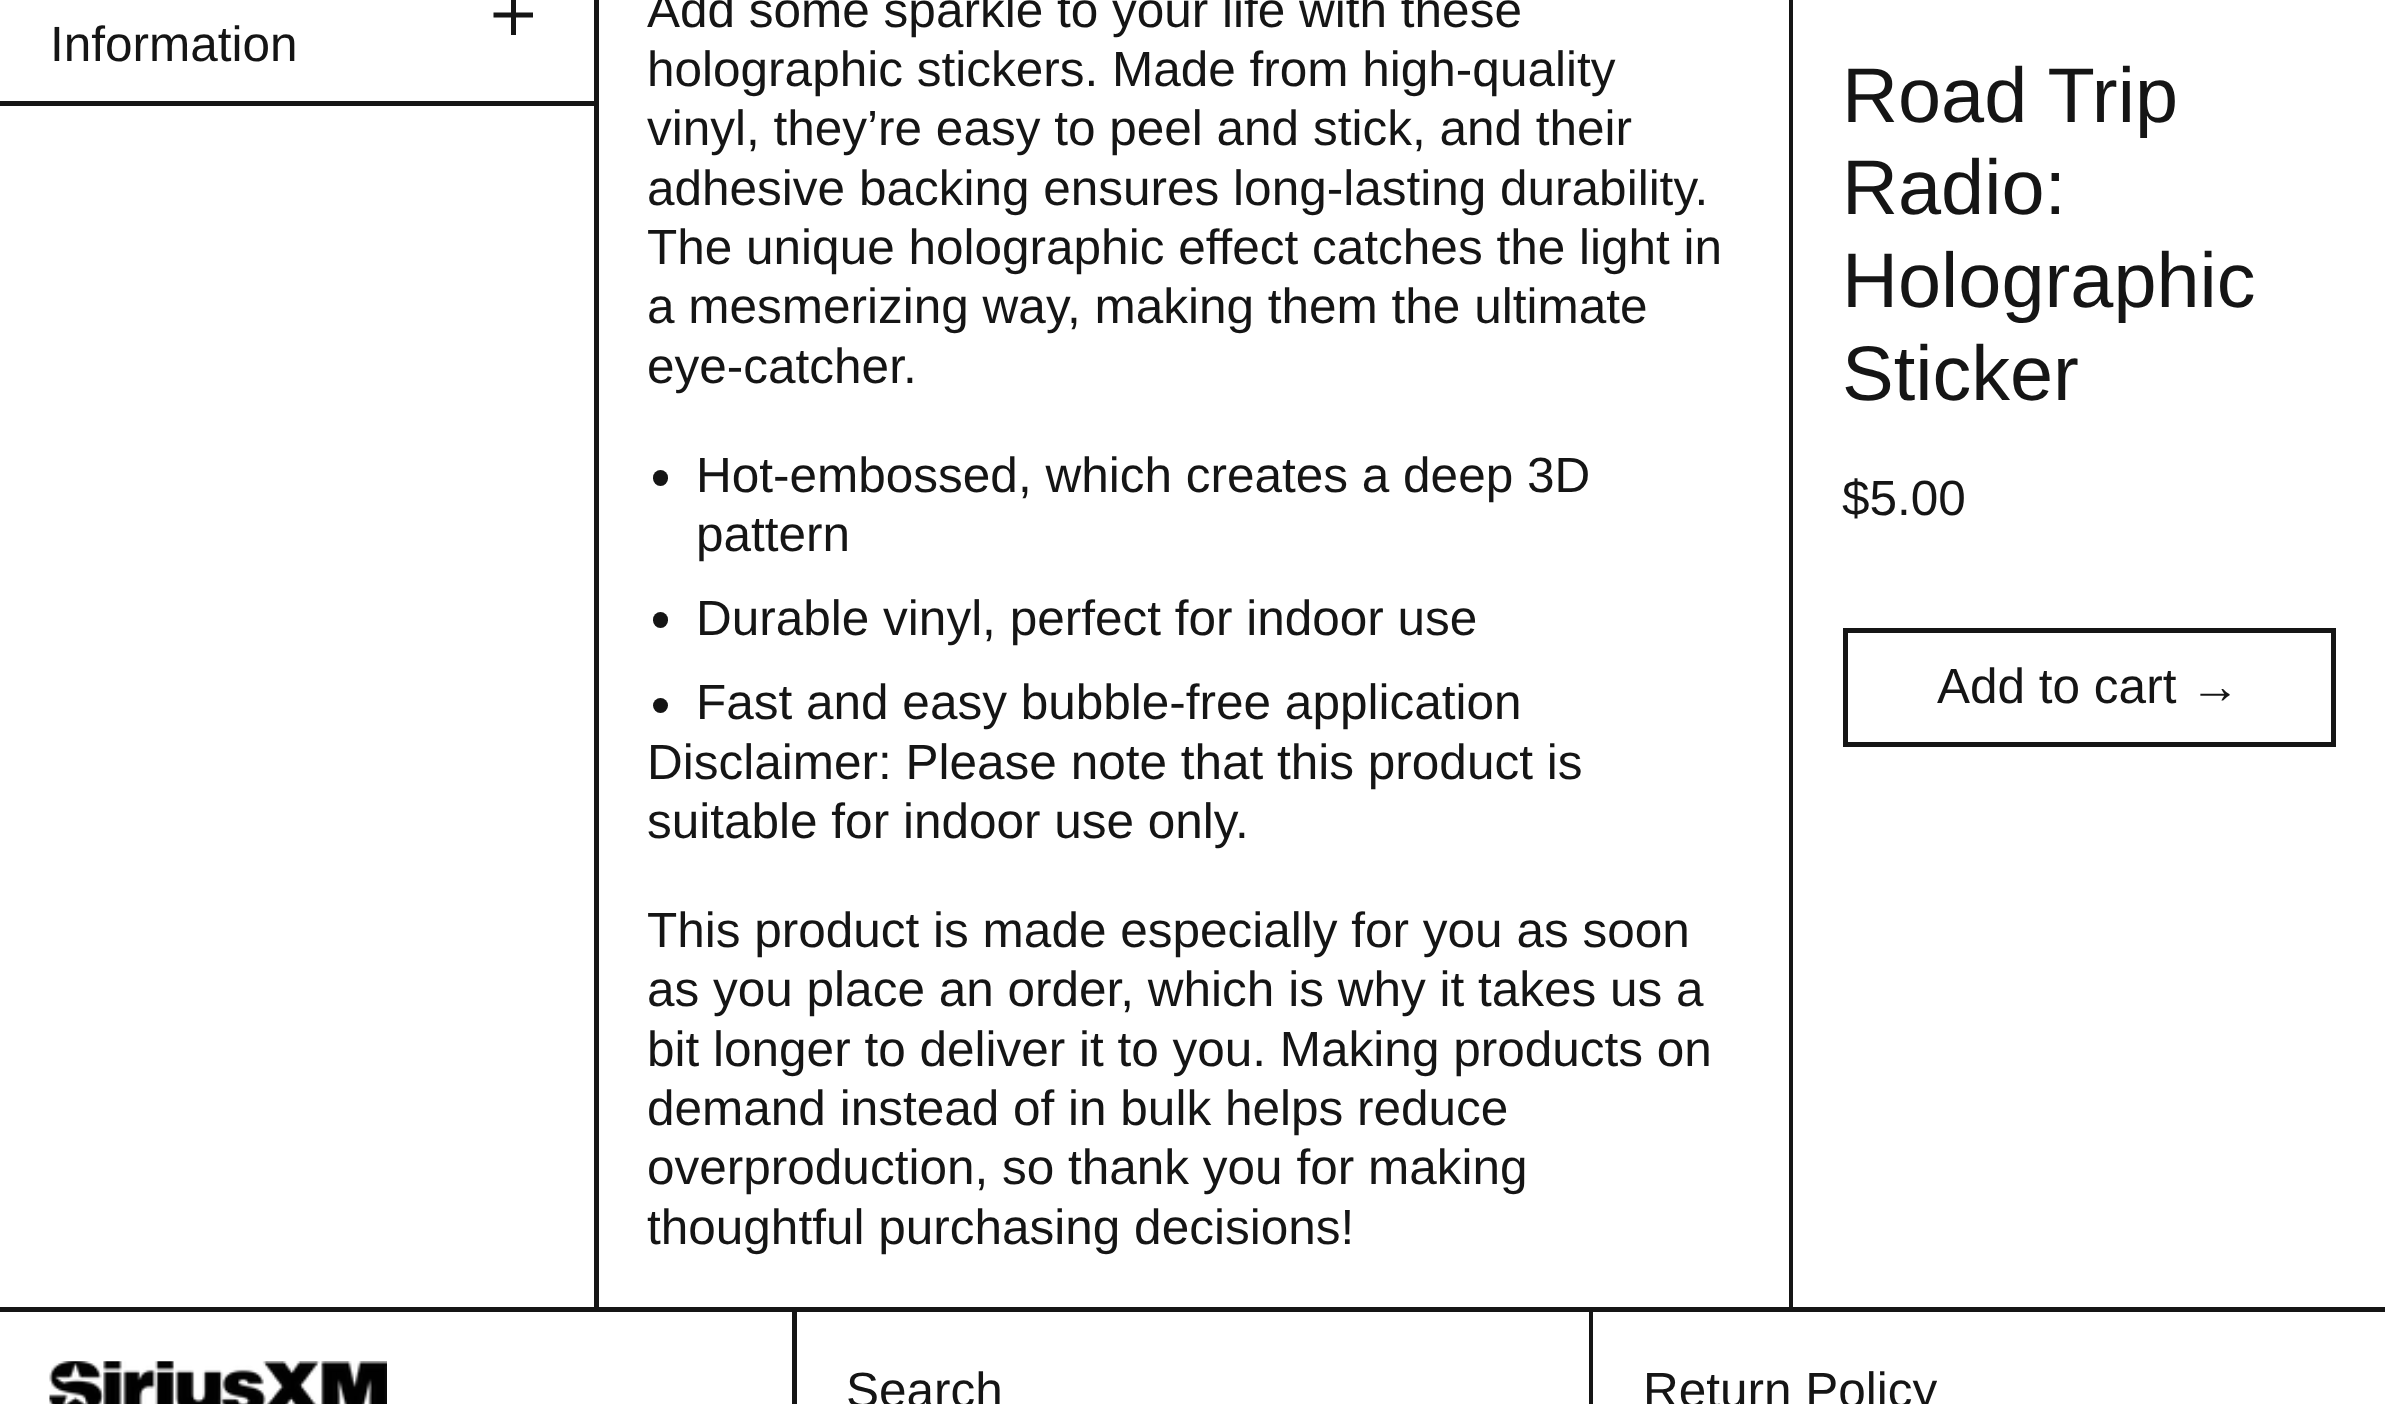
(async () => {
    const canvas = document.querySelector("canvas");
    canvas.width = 2385;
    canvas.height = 1404;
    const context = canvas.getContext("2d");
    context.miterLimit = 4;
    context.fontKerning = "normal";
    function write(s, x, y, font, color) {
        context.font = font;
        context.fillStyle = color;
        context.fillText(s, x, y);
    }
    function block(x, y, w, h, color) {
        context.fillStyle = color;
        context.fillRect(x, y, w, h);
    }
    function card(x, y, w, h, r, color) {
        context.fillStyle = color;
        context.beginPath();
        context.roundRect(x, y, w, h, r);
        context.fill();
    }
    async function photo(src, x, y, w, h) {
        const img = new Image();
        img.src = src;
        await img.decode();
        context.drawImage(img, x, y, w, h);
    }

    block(0, 0, 2385, 1404, "rgb(21, 21, 21)");
    block(0, 0, 594, 1307, "rgb(255, 255, 255)");
    block(0, 101, 594, 5, "rgb(21, 21, 21)");
    context.beginPath();
    context.moveTo(533, 12.5);
    context.lineTo(533, 17.5);
    context.lineTo(516, 17.5);
    context.lineTo(516, 35);
    context.lineTo(511, 35);
    context.lineTo(511, 17.5);
    context.lineTo(493.5, 17.5);
    context.lineTo(493.5, 12.5);
    context.lineTo(511, 12.5);
    context.lineTo(511, -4.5);
    context.lineTo(516, -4.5);
    context.lineTo(516, 12.5);
    context.closePath();
    context.fill("evenodd");
    write("Information", 50, 61, "49.5px Liberation Sans", "rgb(21, 21, 21)");
    block(599, 0, 1190, 1307, "rgb(255, 255, 255)");
    write("Add some sparkle to your life with these", 647, 27, "49.5px Liberation Sans", "rgb(21, 21, 21)");
    write("holographic stickers. Made from high-quality", 647, 86, "49.5px Liberation Sans", "rgb(21, 21, 21)");
    write("vinyl, they’re easy to peel and stick, and their", 647, 145, "49.5px Liberation Sans", "rgb(21, 21, 21)");
    write("adhesive backing ensures long-lasting durability.", 647, 205, "49.5px Liberation Sans", "rgb(21, 21, 21)");
    write("The unique holographic effect catches the light in", 647, 264, "49.5px Liberation Sans", "rgb(21, 21, 21)");
    write("a mesmerizing way, making them the ultimate", 647, 323, "49.5px Liberation Sans", "rgb(21, 21, 21)");
    write("eye-catcher.", 647, 383, "49.5px Liberation Sans", "rgb(21, 21, 21)");
    card(653, 470, 15, 16, 7.5, "rgb(21, 21, 21)");
    write("Hot-embossed, which creates a deep 3D", 696, 492, "49.5px Liberation Sans", "rgb(21, 21, 21)");
    write("pattern", 696, 551, "49.5px Liberation Sans", "rgb(21, 21, 21)");
    card(653, 612, 15, 16, 7.5, "rgb(21, 21, 21)");
    write("Durable vinyl, perfect for indoor use", 696, 635, "49.5px Liberation Sans", "rgb(21, 21, 21)");
    context.beginPath();
    context.arc(660.5, 705.5, 7.5, 0, Math.PI * 2);
    context.fill();
    write("Fast and easy bubble-free application", 696, 719, "49.5px Liberation Sans", "rgb(21, 21, 21)");
    write("Disclaimer: Please note that this product is", 647, 779, "49.5px Liberation Sans", "rgb(21, 21, 21)");
    write("suitable for indoor use only.", 647, 838, "49.5px Liberation Sans", "rgb(21, 21, 21)");
    write("This product is made especially for you as soon", 647, 947, "49.5px Liberation Sans", "rgb(21, 21, 21)");
    write("as you place an order, which is why it takes us a", 647, 1006, "49.5px Liberation Sans", "rgb(21, 21, 21)");
    write("bit longer to deliver it to you. Making products on", 647, 1066, "49.5px Liberation Sans", "rgb(21, 21, 21)");
    write("demand instead of in bulk helps reduce", 647, 1125, "49.5px Liberation Sans", "rgb(21, 21, 21)");
    write("overproduction, so thank you for making", 647, 1184, "49.5px Liberation Sans", "rgb(21, 21, 21)");
    write("thoughtful purchasing decisions!", 647, 1244, "49.5px Liberation Sans", "rgb(21, 21, 21)");
    block(1793, 0, 592, 1307, "rgb(255, 255, 255)");
    write("Road Trip", 1842, 122, "77.5px Liberation Sans", "rgb(21, 21, 21)");
    write("Radio:", 1842, 214, "77.5px Liberation Sans", "rgb(21, 21, 21)");
    write("Holographic", 1842, 307, "77.5px Liberation Sans", "rgb(21, 21, 21)");
    write("Sticker", 1842, 400, "77.5px Liberation Sans", "rgb(21, 21, 21)");
    write("$5.00", 1842, 515, "49.5px Liberation Sans", "rgb(21, 21, 21)");
    context.strokeStyle = "rgb(21, 21, 21)";
    context.lineWidth = 5;
    context.strokeRect(1845.5, 630.5, 488, 114);
    write("Add to cart →", 1937, 703, "49.5px Liberation Sans", "rgb(21, 21, 21)");
    block(0, 1312, 792, 92, "rgb(255, 255, 255)");
    await photo("media/1.png", 49, 1361, 338, 43);
    block(797, 1312, 792, 92, "rgb(255, 255, 255)");
    write("Search", 846, 1407, "49.5px Liberation Sans", "rgb(21, 21, 21)");
    block(1593, 1312, 792, 92, "rgb(255, 255, 255)");
    write("Return Policy", 1643, 1407, "49.5px Liberation Sans", "rgb(21, 21, 21)");
})();
